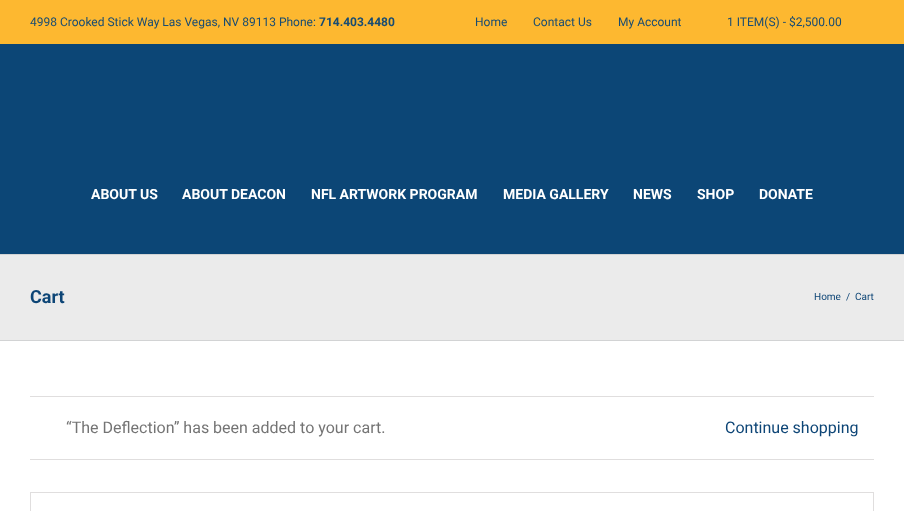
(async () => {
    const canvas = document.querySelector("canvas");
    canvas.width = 904;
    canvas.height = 511;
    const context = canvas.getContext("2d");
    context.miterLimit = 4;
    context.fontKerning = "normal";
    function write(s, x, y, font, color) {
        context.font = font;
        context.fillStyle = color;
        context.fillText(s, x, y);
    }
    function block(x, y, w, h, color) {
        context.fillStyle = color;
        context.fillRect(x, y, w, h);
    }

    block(0, 0, 904, 511, "rgb(255, 255, 255)");
    block(0, 0, 904, 44, "rgb(253, 184, 48)");
    block(0, 44, 904, 210, "rgb(12, 70, 118)");
    write("4998 Crooked Stick Way Las Vegas, NV 89113 Phone:", 30, 26, "12px Roboto", "rgb(24, 76, 114)");
    write("714.403.4480", 319, 26, "bold 12px Roboto", "rgb(24, 76, 114)");
    write("Home", 475, 26, "12px Roboto", "rgb(24, 76, 114)");
    write("Contact Us", 533, 26, "12px Roboto", "rgb(24, 76, 114)");
    write("My Account", 618, 26, "12px Roboto", "rgb(24, 76, 114)");
    write("1 ITEM(S) - $2,500.00", 727, 26, "12px Roboto", "rgb(24, 76, 114)");
    write("ABOUT US", 91, 199, "bold 14px Roboto", "rgb(255, 255, 255)");
    write("ABOUT DEACON", 182, 199, "bold 14px Roboto", "rgb(255, 255, 255)");
    write("NFL ARTWORK PROGRAM", 311, 199, "bold 14px Roboto", "rgb(255, 255, 255)");
    write("MEDIA GALLERY", 503, 199, "bold 14px Roboto", "rgb(255, 255, 255)");
    write("NEWS", 633, 199, "bold 14px Roboto", "rgb(255, 255, 255)");
    write("SHOP", 697, 199, "bold 14px Roboto", "rgb(255, 255, 255)");
    write("DONATE", 759, 199, "bold 14px Roboto", "rgb(255, 255, 255)");
    block(0, 255, 904, 85, "rgb(235, 235, 235)");
    block(0, 254, 904, 1, "rgb(210, 211, 212)");
    block(0, 340, 904, 1, "rgb(210, 211, 212)");
    write("Cart", 30, 303, "bold 18px Roboto", "rgb(13, 69, 118)");
    write("Home", 814, 300, "10px Roboto", "rgb(13, 69, 118)");
    write("/", 846, 300, "10px Roboto", "rgb(13, 69, 118)");
    write("Cart", 855, 300, "10px Roboto", "rgb(13, 69, 118)");
    block(30, 396, 844, 1, "rgb(224, 222, 222)");
    block(30, 459, 844, 1, "rgb(224, 222, 222)");
    write("“The Deflection” has been added to your cart.", 66, 433, "16px Roboto", "rgb(116, 116, 116)");
    write("Continue shopping", 725, 433, "16px Roboto", "rgb(13, 69, 118)");
    context.strokeStyle = "rgb(224, 222, 222)";
    context.strokeRect(30.5, 492.5, 843, 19);
})();
